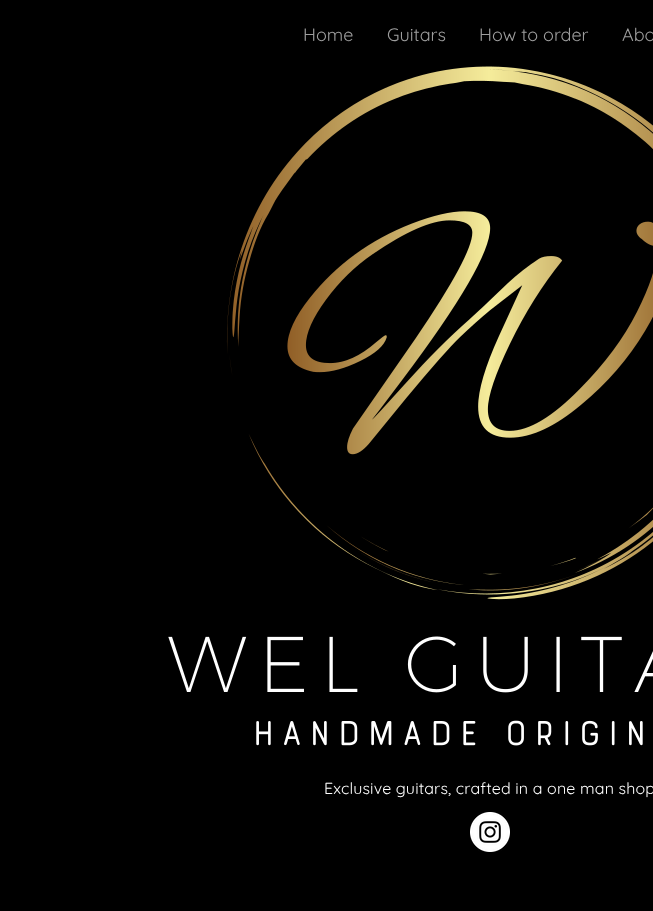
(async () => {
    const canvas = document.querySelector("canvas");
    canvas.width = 653;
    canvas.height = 911;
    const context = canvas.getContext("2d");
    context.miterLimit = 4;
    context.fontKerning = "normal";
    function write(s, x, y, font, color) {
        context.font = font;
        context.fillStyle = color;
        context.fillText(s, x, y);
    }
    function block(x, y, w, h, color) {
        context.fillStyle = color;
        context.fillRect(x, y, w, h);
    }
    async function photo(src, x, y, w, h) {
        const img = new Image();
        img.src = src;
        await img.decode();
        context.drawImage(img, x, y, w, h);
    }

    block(0, 0, 653, 911, "rgb(0, 0, 0)");
    write("Home", 303, 41, "18px Quicksand", "rgb(158, 158, 158)");
    write("Guitars", 387, 41, "18px Quicksand", "rgb(158, 158, 158)");
    write("How to order", 479, 41, "18px Quicksand", "rgb(158, 158, 158)");
    write("Abo", 622, 41, "18px Quicksand", "rgb(158, 158, 158)");
    await photo("media/1.png", 168, 66, 485, 680);
    context.letterSpacing = "0.15px";
    write("Exclusive guitars, crafted in a one man shop", 324, 794, "16px Quicksand", "rgb(255, 255, 255)");
    await photo("media/2.png", 470, 812, 40, 40);
})();
